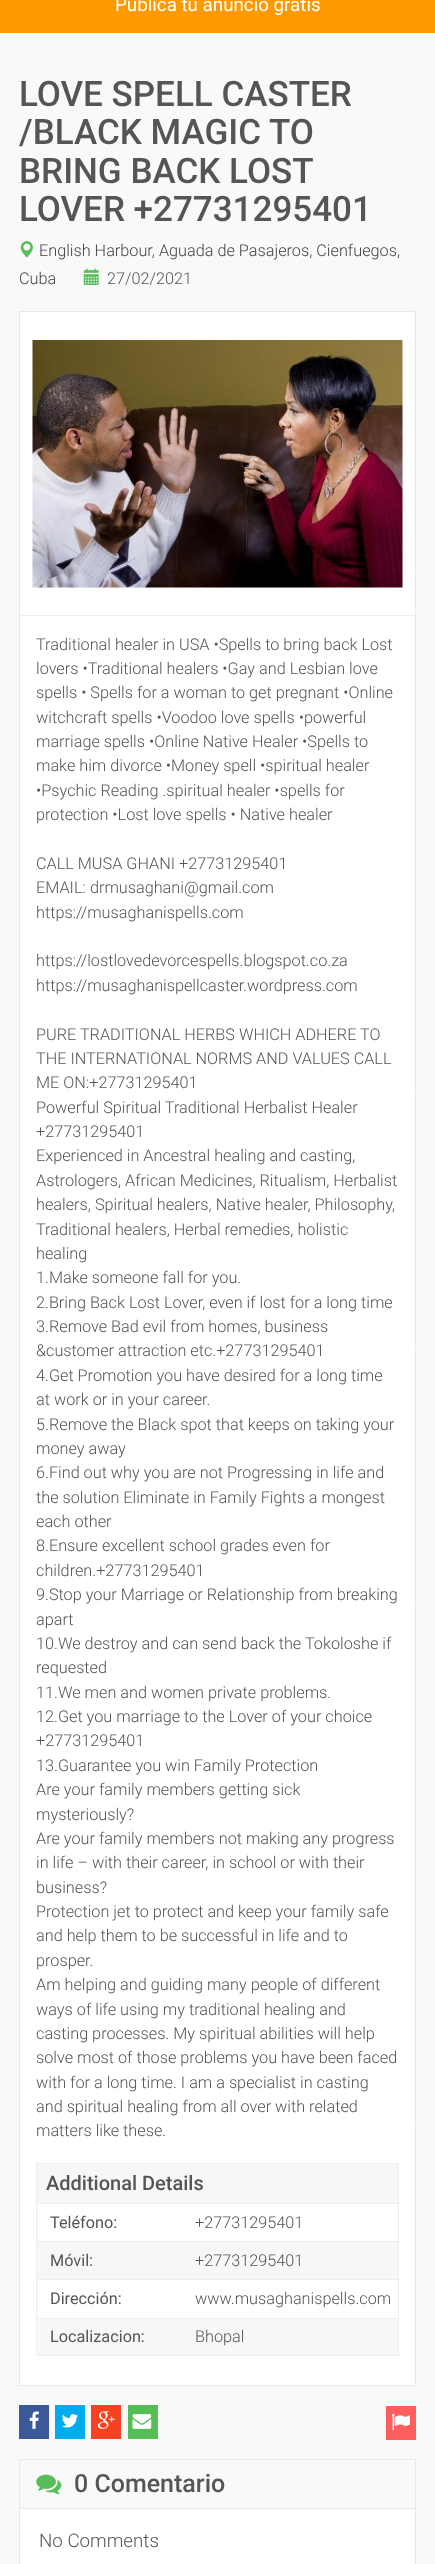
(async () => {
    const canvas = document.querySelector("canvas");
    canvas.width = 435;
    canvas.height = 2564;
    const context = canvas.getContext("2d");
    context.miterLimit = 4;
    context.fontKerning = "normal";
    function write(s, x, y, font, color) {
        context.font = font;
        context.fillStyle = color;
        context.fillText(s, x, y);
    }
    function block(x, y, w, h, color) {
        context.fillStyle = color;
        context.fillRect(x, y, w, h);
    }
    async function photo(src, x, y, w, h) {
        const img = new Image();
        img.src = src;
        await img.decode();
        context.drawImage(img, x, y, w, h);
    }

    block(0, 0, 435, 2564, "rgb(255, 153, 0)");
    write("Publica tu anuncio gratis", 115, 11, "18.75px Roboto", "rgb(255, 255, 255)");
    block(0, 33, 435, 2531, "rgb(249, 249, 249)");
    write("LOVE SPELL CASTER", 19, 106, "500 35px Roboto", "rgb(85, 85, 85)");
    write("/BLACK MAGIC TO", 19, 144, "500 35px Roboto", "rgb(85, 85, 85)");
    write("BRING BACK LOST", 19, 183, "500 35px Roboto", "rgb(85, 85, 85)");
    write("LOVER +27731295401", 19, 221, "500 35px Roboto", "rgb(85, 85, 85)");
    await photo("media/1.png", 20, 241, 13, 17);
    write("English Harbour, Aguada de Pasajeros, Cienfuegos,", 39, 256, "300 16.25px Roboto", "rgb(68, 68, 68)");
    write("Cuba", 19, 284, "300 16.25px Roboto", "rgb(68, 68, 68)");
    await photo("media/2.png", 83, 268, 16, 17);
    write("27/02/2021", 107, 284, "300 16.25px Roboto", "rgb(85, 85, 85)");
    context.fillStyle = "rgb(255, 255, 255)";
    context.beginPath();
    context.rect(19.5, 311.5, 396, 2074);
    context.fill();
    context.strokeStyle = "rgb(233, 233, 233)";
    context.stroke();
    block(20, 615, 395, 1, "rgb(238, 238, 238)");
    await photo("media/3.png", 32, 335, 371, 255);
    write("Traditional healer in USA •Spells to bring back Lost", 36, 650, "300 16.25px Roboto", "rgb(85, 85, 85)");
    write("lovers •Traditional healers •Gay and Lesbian love", 36, 674, "300 16.25px Roboto", "rgb(85, 85, 85)");
    write("spells • Spells for a woman to get pregnant •Online", 36, 698, "300 16.25px Roboto", "rgb(85, 85, 85)");
    write("witchcraft spells •Voodoo love spells •powerful", 36, 723, "300 16.25px Roboto", "rgb(85, 85, 85)");
    write("marriage spells •Online Native Healer •Spells to", 36, 747, "300 16.25px Roboto", "rgb(85, 85, 85)");
    write("make him divorce •Money spell •spiritual healer", 36, 771, "300 16.25px Roboto", "rgb(85, 85, 85)");
    write("•Psychic Reading .spiritual healer •spells for", 36, 796, "300 16.25px Roboto", "rgb(85, 85, 85)");
    write("protection •Lost love spells • Native healer", 36, 820, "300 16.25px Roboto", "rgb(85, 85, 85)");
    write("CALL MUSA GHANI +27731295401", 36, 869, "300 16.25px Roboto", "rgb(85, 85, 85)");
    write("EMAIL: drmusaghani@gmail.com", 36, 893, "300 16.25px Roboto", "rgb(85, 85, 85)");
    write("https://musaghanispells.com", 36, 918, "300 16.25px Roboto", "rgb(85, 85, 85)");
    write("https://lostlovedevorcespells.blogspot.co.za", 36, 966, "300 16.25px Roboto", "rgb(85, 85, 85)");
    write("https://musaghanispellcaster.wordpress.com", 36, 991, "300 16.25px Roboto", "rgb(85, 85, 85)");
    write("PURE TRADITIONAL HERBS WHICH ADHERE TO", 36, 1040, "300 16.25px Roboto", "rgb(85, 85, 85)");
    write("THE INTERNATIONAL NORMS AND VALUES CALL", 36, 1064, "300 16.25px Roboto", "rgb(85, 85, 85)");
    write("ME ON:+27731295401", 36, 1088, "300 16.25px Roboto", "rgb(85, 85, 85)");
    write("Powerful Spiritual Traditional Herbalist Healer", 36, 1113, "300 16.25px Roboto", "rgb(85, 85, 85)");
    write("+27731295401", 36, 1137, "300 16.25px Roboto", "rgb(85, 85, 85)");
    write("Experienced in Ancestral healing and casting,", 36, 1161, "300 16.25px Roboto", "rgb(85, 85, 85)");
    write("Astrologers, African Medicines, Ritualism, Herbalist", 36, 1186, "300 16.25px Roboto", "rgb(85, 85, 85)");
    write("healers, Spiritual healers, Native healer, Philosophy,", 36, 1210, "300 16.25px Roboto", "rgb(85, 85, 85)");
    write("Traditional healers, Herbal remedies, holistic", 36, 1235, "300 16.25px Roboto", "rgb(85, 85, 85)");
    write("healing", 36, 1259, "300 16.25px Roboto", "rgb(85, 85, 85)");
    write("1.Make someone fall for you.", 36, 1283, "300 16.25px Roboto", "rgb(85, 85, 85)");
    write("2.Bring Back Lost Lover, even if lost for a long time", 36, 1308, "300 16.25px Roboto", "rgb(85, 85, 85)");
    write("3.Remove Bad evil from homes, business", 36, 1332, "300 16.25px Roboto", "rgb(85, 85, 85)");
    write("&customer attraction etc.+27731295401", 36, 1356, "300 16.25px Roboto", "rgb(85, 85, 85)");
    write("4.Get Promotion you have desired for a long time", 36, 1381, "300 16.25px Roboto", "rgb(85, 85, 85)");
    write("at work or in your career.", 36, 1405, "300 16.25px Roboto", "rgb(85, 85, 85)");
    write("5.Remove the Black spot that keeps on taking your", 36, 1430, "300 16.25px Roboto", "rgb(85, 85, 85)");
    write("money away", 36, 1454, "300 16.25px Roboto", "rgb(85, 85, 85)");
    write("6.Find out why you are not Progressing in life and", 36, 1478, "300 16.25px Roboto", "rgb(85, 85, 85)");
    write("the solution Eliminate in Family Fights a mongest", 36, 1503, "300 16.25px Roboto", "rgb(85, 85, 85)");
    write("each other", 36, 1527, "300 16.25px Roboto", "rgb(85, 85, 85)");
    write("8.Ensure excellent school grades even for", 36, 1551, "300 16.25px Roboto", "rgb(85, 85, 85)");
    write("children.+27731295401", 36, 1576, "300 16.25px Roboto", "rgb(85, 85, 85)");
    write("9.Stop your Marriage or Relationship from breaking", 36, 1600, "300 16.25px Roboto", "rgb(85, 85, 85)");
    write("apart", 36, 1625, "300 16.25px Roboto", "rgb(85, 85, 85)");
    write("10.We destroy and can send back the Tokoloshe if", 36, 1649, "300 16.25px Roboto", "rgb(85, 85, 85)");
    write("requested", 36, 1673, "300 16.25px Roboto", "rgb(85, 85, 85)");
    write("11.We men and women private problems.", 36, 1698, "300 16.25px Roboto", "rgb(85, 85, 85)");
    write("12.Get you marriage to the Lover of your choice", 36, 1722, "300 16.25px Roboto", "rgb(85, 85, 85)");
    write("+27731295401", 36, 1746, "300 16.25px Roboto", "rgb(85, 85, 85)");
    write("13.Guarantee you win Family Protection", 36, 1771, "300 16.25px Roboto", "rgb(85, 85, 85)");
    write("Are your family members getting sick", 36, 1795, "300 16.25px Roboto", "rgb(85, 85, 85)");
    write("mysteriously?", 36, 1820, "300 16.25px Roboto", "rgb(85, 85, 85)");
    write("Are your family members not making any progress", 36, 1844, "300 16.25px Roboto", "rgb(85, 85, 85)");
    write("in life – with their career, in school or with their", 36, 1868, "300 16.25px Roboto", "rgb(85, 85, 85)");
    write("business?", 36, 1893, "300 16.25px Roboto", "rgb(85, 85, 85)");
    write("Protection jet to protect and keep your family safe", 36, 1917, "300 16.25px Roboto", "rgb(85, 85, 85)");
    write("and help them to be successful in life and to", 36, 1941, "300 16.25px Roboto", "rgb(85, 85, 85)");
    write("prosper.", 36, 1966, "300 16.25px Roboto", "rgb(85, 85, 85)");
    write("Am helping and guiding many people of different", 36, 1990, "300 16.25px Roboto", "rgb(85, 85, 85)");
    write("ways of life using my traditional healing and", 36, 2015, "300 16.25px Roboto", "rgb(85, 85, 85)");
    write("casting processes. My spiritual abilities will help", 36, 2039, "300 16.25px Roboto", "rgb(85, 85, 85)");
    write("solve most of those problems you have been faced", 36, 2063, "300 16.25px Roboto", "rgb(85, 85, 85)");
    write("with for a long time. I am a specialist in casting", 36, 2088, "300 16.25px Roboto", "rgb(85, 85, 85)");
    write("and spiritual healing from all over with related", 36, 2112, "300 16.25px Roboto", "rgb(85, 85, 85)");
    write("matters like these.", 36, 2136, "300 16.25px Roboto", "rgb(85, 85, 85)");
    block(37, 2164, 361, 39, "rgb(247, 247, 247)");
    block(36, 2163, 363, 1, "rgb(238, 238, 238)");
    block(398, 2163, 1, 40, "rgb(238, 238, 238)");
    block(36, 2163, 1, 40, "rgb(238, 238, 238)");
    write("Additional Details", 46, 2190, "500 20px Roboto", "rgb(85, 85, 85)");
    block(37, 2204, 1, 151, "rgb(250, 250, 250)");
    block(36, 2203, 363, 1, "rgb(238, 238, 238)");
    block(398, 2203, 1, 153, "rgb(238, 238, 238)");
    block(36, 2355, 363, 1, "rgb(238, 238, 238)");
    block(36, 2203, 1, 153, "rgb(238, 238, 238)");
    write("Teléfono:", 50, 2228, "16.25px Roboto", "rgb(85, 85, 85)");
    write("+27731295401", 195, 2228, "300 16.25px Roboto", "rgb(85, 85, 85)");
    block(38, 2242, 360, 37, "rgb(247, 247, 247)");
    block(36, 2241, 363, 1, "rgb(238, 238, 238)");
    write("Móvil:", 50, 2266, "16.25px Roboto", "rgb(85, 85, 85)");
    write("+27731295401", 195, 2266, "300 16.25px Roboto", "rgb(85, 85, 85)");
    block(36, 2279, 363, 1, "rgb(238, 238, 238)");
    write("Dirección:", 50, 2304, "16.25px Roboto", "rgb(85, 85, 85)");
    write("www.musaghanispells.com", 195, 2304, "300 16.25px Roboto", "rgb(85, 85, 85)");
    block(38, 2319, 360, 36, "rgb(247, 247, 247)");
    block(36, 2318, 363, 1, "rgb(238, 238, 238)");
    write("Localizacion:", 50, 2342, "16.25px Roboto", "rgb(85, 85, 85)");
    write("Bhopal", 195, 2342, "300 16.25px Roboto", "rgb(85, 85, 85)");
    block(19, 2405, 30, 34, "rgb(59, 89, 152)");
    await photo("media/4.png", 29, 2411, 10, 18);
    block(55, 2405, 30, 34, "rgb(0, 172, 237)");
    await photo("media/5.png", 62, 2414, 16, 14);
    block(91, 2405, 30, 34, "rgb(245, 67, 34)");
    await photo("media/6.png", 97, 2411, 18, 18);
    block(128, 2405, 30, 34, "rgb(85, 189, 86)");
    await photo("media/7.png", 132, 2414, 20, 15);
    block(386, 2406, 30, 34, "rgb(255, 94, 94)");
    await photo("media/8.png", 391, 2414, 19, 17);
    block(20, 2509, 395, 55, "rgb(255, 255, 255)");
    context.strokeRect(19.5, 2459.5, 396, 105);
    block(20, 2508, 395, 1, "rgb(233, 233, 233)");
    await photo("media/9.png", 36, 2474, 26, 21);
    write("0 Comentario", 74, 2492, "500 25px Roboto", "rgb(85, 85, 85)");
    write("No Comments", 39, 2547, "300 18.75px Roboto", "rgb(85, 85, 85)");
})();
